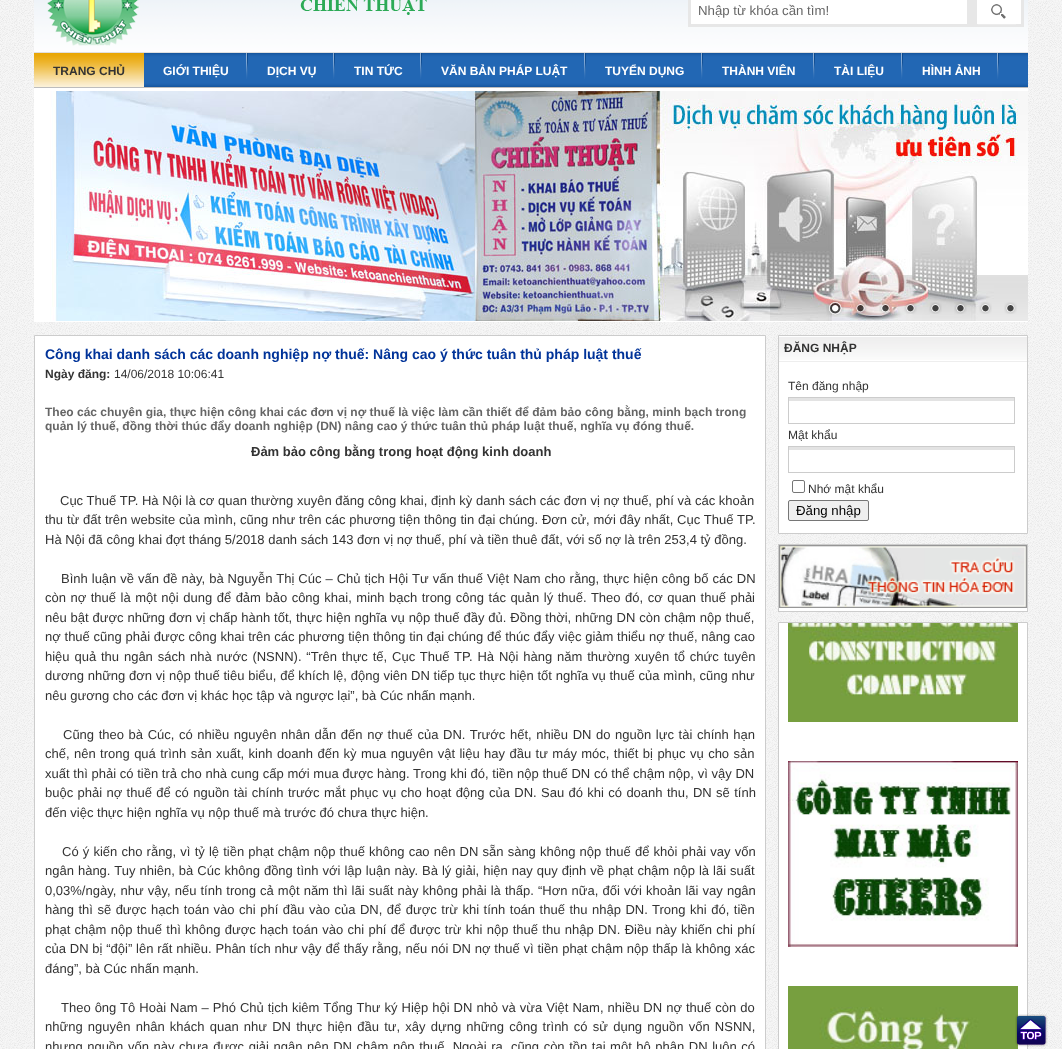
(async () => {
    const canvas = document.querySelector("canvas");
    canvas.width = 1062;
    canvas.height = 1049;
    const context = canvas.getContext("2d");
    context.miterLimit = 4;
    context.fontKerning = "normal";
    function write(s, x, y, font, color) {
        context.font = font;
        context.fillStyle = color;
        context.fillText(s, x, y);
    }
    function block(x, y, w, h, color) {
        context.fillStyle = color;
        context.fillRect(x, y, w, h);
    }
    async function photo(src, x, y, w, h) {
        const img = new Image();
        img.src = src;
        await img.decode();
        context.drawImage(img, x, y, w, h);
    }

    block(0, 0, 1062, 1049, "rgb(255, 255, 255)");
    await photo("media/1.png", 0, 0, 1062, 1049);
    block(34, 88, 994, 234, "rgb(255, 255, 255)");
    await photo("media/2.png", 34, 0, 994, 88);
    await photo("media/3.png", 47, 0, 380, 46);
    await photo("media/4.png", 688, 0, 336, 27);
    write("Nhập từ khóa cần tìm!", 698, 15, "13.25px Liberation Sans", "rgb(102, 102, 102)");
    await photo("media/5.png", 34, 53, 110, 34);
    write("TRANG CHỦ", 53, 75, "bold 12px Liberation Sans", "rgb(51, 51, 51)");
    await photo("media/6.png", 246, 53, 2, 26);
    write("GIỚI THIỆU", 163, 75, "bold 12px Liberation Sans", "rgb(255, 255, 255)");
    await photo("media/6.png", 333, 53, 2, 26);
    write("DỊCH VỤ", 267, 75, "bold 12px Liberation Sans", "rgb(255, 255, 255)");
    await photo("media/6.png", 420, 53, 2, 26);
    write("TIN TỨC", 354, 75, "bold 12px Liberation Sans", "rgb(255, 255, 255)");
    await photo("media/6.png", 584, 53, 2, 26);
    write("VĂN BẢN PHÁP LUẬT", 441, 75, "bold 12px Liberation Sans", "rgb(255, 255, 255)");
    await photo("media/6.png", 701, 53, 2, 26);
    write("TUYỂN DỤNG", 605, 75, "bold 12px Liberation Sans", "rgb(255, 255, 255)");
    await photo("media/6.png", 813, 53, 2, 26);
    write("THÀNH VIÊN", 722, 75, "bold 12px Liberation Sans", "rgb(255, 255, 255)");
    await photo("media/6.png", 901, 53, 2, 26);
    write("TÀI LIỆU", 834, 75, "bold 12px Liberation Sans", "rgb(255, 255, 255)");
    await photo("media/6.png", 997, 53, 2, 26);
    write("HÌNH ẢNH", 922, 75, "bold 12px Liberation Sans", "rgb(255, 255, 255)");
    await photo("media/7.png", 50, 91, 978, 230);
    await photo("media/8.png", 826, 299, 18, 18);
    await photo("media/9.png", 854, 302, 13, 12);
    await photo("media/10.png", 879, 302, 13, 12);
    await photo("media/11.png", 904, 302, 13, 12);
    await photo("media/12.png", 929, 302, 13, 12);
    await photo("media/13.png", 954, 302, 13, 12);
    await photo("media/14.png", 979, 302, 13, 12);
    await photo("media/15.png", 1004, 302, 13, 12);
    context.beginPath();
    context.rect(34.5, 335.5, 731, 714);
    context.fill();
    context.strokeStyle = "rgb(204, 204, 204)";
    context.stroke();
    write("Công khai danh sách các doanh nghiệp nợ thuế: Nâng cao ý thức tuân thủ pháp luật thuế", 45, 359, "bold 14px Liberation Sans", "rgb(0, 51, 153)");
    write("Ngày đăng:", 45, 378, "bold 12px Liberation Sans", "rgb(51, 51, 51)");
    write("14/06/2018 10:06:41", 114, 378, "12px Liberation Sans", "rgb(51, 51, 51)");
    write("Theo các chuyên gia, thực hiện công khai các đơn vị nợ thuế là việc làm cần thiết để đảm bảo công bằng, minh bạch trong", 45, 416, "bold 12px Liberation Sans", "rgb(102, 102, 102)");
    write("quản lý thuế, đồng thời thúc đẩy doanh nghiệp (DN) nâng cao ý thức tuân thủ pháp luật thuế, nghĩa vụ đóng thuế.", 45, 430, "bold 12px Liberation Sans", "rgb(102, 102, 102)");
    write("Đảm bảo công bằng trong hoạt động kinh doanh", 251, 456, "bold 13px Liberation Sans", "rgb(51, 51, 51)");
    context.wordSpacing = "0.1px";
    write("Cục Thuế TP. Hà Nội là cơ quan thường xuyên đăng công khai, định kỳ danh sách các đơn vị nợ thuế, phí và các khoản", 60, 505, "13px Liberation Sans", "rgb(51, 51, 51)");
    context.wordSpacing = "0.2px";
    write("thu từ đất trên website của mình, cũng như trên các phương tiện thông tin đại chúng. Đơn cử, mới đây nhất, Cục Thuế TP.", 45, 524, "13px Liberation Sans", "rgb(51, 51, 51)");
    context.wordSpacing = "0px";
    write("Hà Nội đã công khai đợt tháng 5/2018 danh sách 143 đơn vị nợ thuế, phí và tiền thuê đất, với số nợ là trên 253,4 tỷ đồng.", 45, 544, "13px Liberation Sans", "rgb(51, 51, 51)");
    context.wordSpacing = "0.4px";
    write("Bình luận về vấn đề này, bà Nguyễn Thị Cúc – Chủ tịch Hội Tư vấn thuế Việt Nam cho rằng, thực hiện công bố các DN", 61, 583, "13px Liberation Sans", "rgb(51, 51, 51)");
    context.wordSpacing = "0.9px";
    write("còn nợ thuế là một nội dung để đảm bảo công khai, minh bạch trong công tác quản lý thuế. Theo đó, cơ quan thuế phải", 45, 602, "13px Liberation Sans", "rgb(51, 51, 51)");
    context.wordSpacing = "0.3px";
    write("nêu bật được những đơn vị chấp hành tốt, thực hiện nghĩa vụ nộp thuế đầy đủ. Đồng thời, những DN còn chậm nộp thuế,", 45, 622, "13px Liberation Sans", "rgb(51, 51, 51)");
    context.wordSpacing = "0.15px";
    write("nợ thuế cũng phải được công khai trên các phương tiện thông tin đại chúng để thúc đẩy việc giảm thiểu nợ thuế, nâng cao", 45, 641, "13px Liberation Sans", "rgb(51, 51, 51)");
    context.wordSpacing = "1.25px";
    write("hiệu quả thu ngân sách nhà nước (NSNN). “Trên thực tế, Cục Thuế TP. Hà Nội hàng năm thường xuyên tổ chức tuyên", 45, 661, "13px Liberation Sans", "rgb(51, 51, 51)");
    context.wordSpacing = "0.15px";
    write("dương những đơn vị nộp thuế tiêu biểu, để khích lệ, động viên DN tiếp tục thực hiện tốt nghĩa vụ thuế của mình, cũng như", 45, 680, "13px Liberation Sans", "rgb(51, 51, 51)");
    context.wordSpacing = "0px";
    write("nêu gương cho các đơn vị khác học tập và ngược lại”, bà Cúc nhấn mạnh.", 45, 700, "13px Liberation Sans", "rgb(51, 51, 51)");
    context.wordSpacing = "1px";
    write("Cũng theo bà Cúc, có nhiều nguyên nhân dẫn đến nợ thuế của DN. Trước hết, nhiều DN do nguồn lực tài chính hạn", 63, 739, "13px Liberation Sans", "rgb(51, 51, 51)");
    context.wordSpacing = "0.8px";
    write("chế, nên trong quá trình sản xuất, kinh doanh đến kỳ mua nguyên vật liệu hay đầu tư máy móc, thiết bị phục vụ cho sản", 45, 758, "13px Liberation Sans", "rgb(51, 51, 51)");
    context.wordSpacing = "0.1px";
    write("xuất thì phải có tiền trả cho nhà cung cấp mới mua được hàng. Trong khi đó, tiền nộp thuế DN có thể chậm nộp, vì vậy DN", 45, 778, "13px Liberation Sans", "rgb(51, 51, 51)");
    context.wordSpacing = "0.75px";
    write("buộc phải nợ thuế để có nguồn tài chính trước mắt phục vụ cho hoạt động của DN. Sau đó khi có doanh thu, DN sẽ tính", 45, 797, "13px Liberation Sans", "rgb(51, 51, 51)");
    context.wordSpacing = "0px";
    write("đến việc thực hiện nghĩa vụ nộp thuế mà trước đó chưa thực hiện.", 45, 817, "13px Liberation Sans", "rgb(51, 51, 51)");
    context.wordSpacing = "0.55px";
    write("Có ý kiến cho rằng, vì tỷ lệ tiền phạt chậm nộp thuế không cao nên DN sẵn sàng không nộp thuế để khỏi phải vay vốn", 62, 856, "13px Liberation Sans", "rgb(51, 51, 51)");
    context.wordSpacing = "0.4px";
    write("ngân hàng. Tuy nhiên, bà Cúc không đồng tình với lập luận này. Bà lý giải, hiện nay quy định về phạt chậm nộp là lãi suất", 45, 875, "13px Liberation Sans", "rgb(51, 51, 51)");
    context.wordSpacing = "0.5px";
    write("0,03%/ngày, như vậy, nếu tính trong cả một năm thì lãi suất này không phải là thấp. “Hơn nữa, đối với khoản lãi vay ngân", 45, 895, "13px Liberation Sans", "rgb(51, 51, 51)");
    context.wordSpacing = "0.9px";
    write("hàng thì sẽ được hạch toán vào chi phí đầu vào của DN, để được trừ khi tính toán thuế thu nhập DN. Trong khi đó, tiền", 45, 914, "13px Liberation Sans", "rgb(51, 51, 51)");
    context.wordSpacing = "0.7px";
    write("phạt chậm nộp thuế thì không được hạch toán vào chi phí để được trừ khi nộp thuế thu nhập DN. Điều này khiến chi phí", 45, 934, "13px Liberation Sans", "rgb(51, 51, 51)");
    context.wordSpacing = "0.2px";
    write("của DN bị “đội” lên rất nhiều. Phân tích như vậy để thấy rằng, nếu nói DN nợ thuế vì tiền phạt chậm nộp thấp là không xác", 45, 953, "13px Liberation Sans", "rgb(51, 51, 51)");
    context.wordSpacing = "0px";
    write("đáng”, bà Cúc nhấn mạnh.", 45, 973, "13px Liberation Sans", "rgb(51, 51, 51)");
    context.wordSpacing = "0.4px";
    write("Theo ông Tô Hoài Nam – Phó Chủ tịch kiêm Tổng Thư ký Hiệp hội DN nhỏ và vừa Việt Nam, nhiều DN nợ thuế còn do", 61, 1012, "13px Liberation Sans", "rgb(51, 51, 51)");
    context.wordSpacing = "1.6px";
    write("những nguyên nhân khách quan như DN thực hiện đầu tư, xây dựng những công trình có sử dụng nguồn vốn NSNN,", 45, 1031, "13px Liberation Sans", "rgb(51, 51, 51)");
    context.wordSpacing = "0.95px";
    write("nhưng nguồn vốn này chưa được giải ngân nên DN chậm nộp thuế. Ngoài ra, cũng còn tồn tại một bộ phận DN luôn có", 45, 1051, "13px Liberation Sans", "rgb(51, 51, 51)");
    context.fillStyle = "rgb(255, 255, 255)";
    context.beginPath();
    context.rect(778.5, 335.5, 249, 198);
    context.fill();
    context.stroke();
    await photo("media/16.png", 779, 337, 248, 23);
    block(779, 361, 248, 1, "rgb(238, 238, 238)");
    context.wordSpacing = "0px";
    write("ĐĂNG NHẬP", 784, 352, "bold 12px Liberation Sans", "rgb(51, 51, 51)");
    write("Tên đăng nhập", 788, 390, "12px Liberation Sans", "rgb(51, 51, 51)");
    block(788, 398, 227, 3, "rgb(227, 227, 227)");
    context.strokeRect(788.5, 397.5, 226, 26);
    write("Mật khẩu", 788, 439, "12px Liberation Sans", "rgb(51, 51, 51)");
    block(788, 447, 227, 3, "rgb(227, 227, 227)");
    context.strokeRect(788.5, 446.5, 226, 26);
    context.beginPath();
    context.roundRect(792.5, 480.5, 12, 12, 1.5);
    context.strokeStyle = "rgb(118, 118, 118)";
    context.stroke();
    write("Nhớ mật khẩu", 808, 493, "12px Liberation Sans", "rgb(51, 51, 51)");
    context.fillStyle = "rgb(239, 239, 239)";
    context.beginPath();
    context.roundRect(788.5, 500.5, 80, 20, 1.5);
    context.fill();
    context.stroke();
    write("Đăng nhập", 796, 515, "13.25px Liberation Sans", "rgb(0, 0, 0)");
    block(779, 608, 248, 3, "rgb(255, 255, 255)");
    context.strokeStyle = "rgb(204, 204, 204)";
    context.strokeRect(778.5, 544.5, 249, 67);
    await photo("media/17.png", 779, 545, 248, 63);
    context.beginPath();
    context.rect(778.5, 622.5, 249, 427);
    context.fill();
    context.stroke();
    await photo("media/18.png", 788, 623, 230, 99);
    await photo("media/19.png", 788, 761, 230, 186);
    await photo("media/20.png", 788, 986, 230, 63);
    await photo("media/21.png", 1015, 1014, 33, 33);
})();
